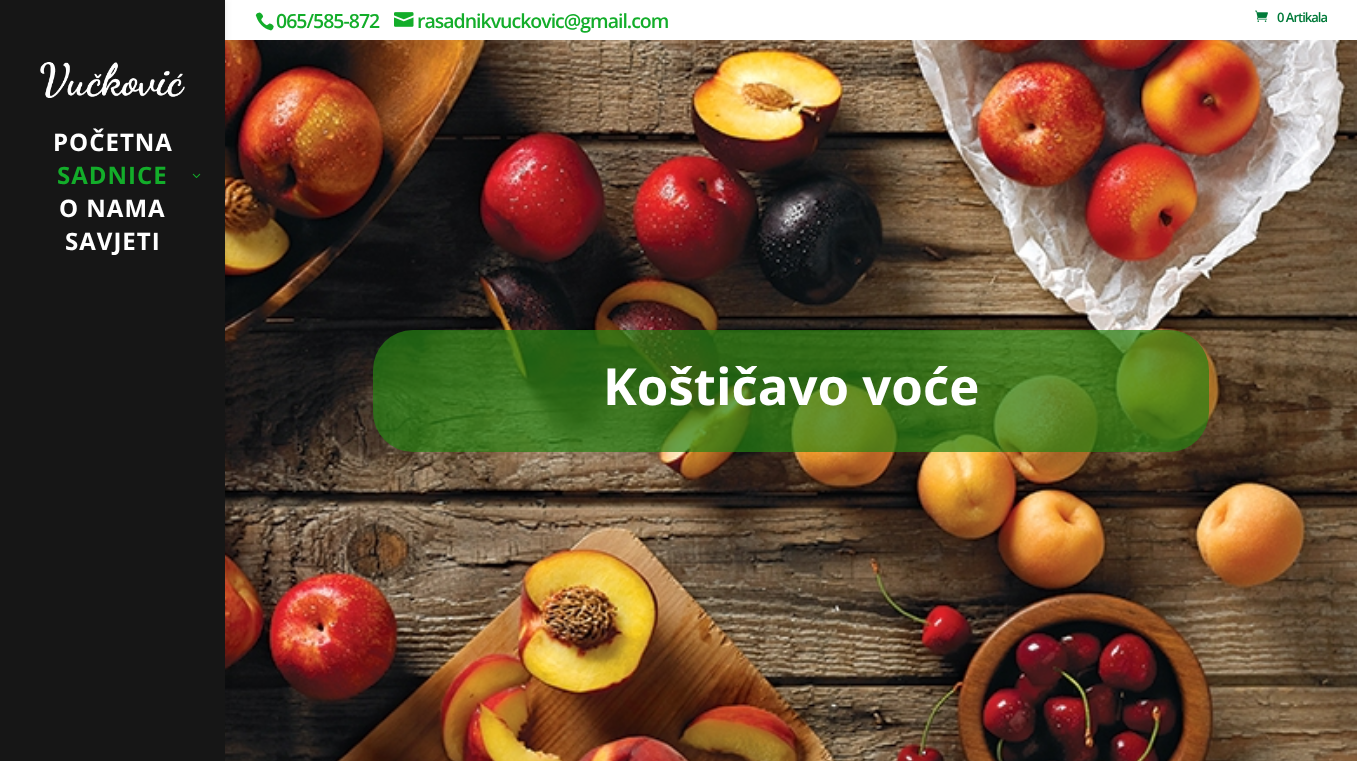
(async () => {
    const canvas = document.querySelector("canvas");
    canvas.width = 1357;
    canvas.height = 761;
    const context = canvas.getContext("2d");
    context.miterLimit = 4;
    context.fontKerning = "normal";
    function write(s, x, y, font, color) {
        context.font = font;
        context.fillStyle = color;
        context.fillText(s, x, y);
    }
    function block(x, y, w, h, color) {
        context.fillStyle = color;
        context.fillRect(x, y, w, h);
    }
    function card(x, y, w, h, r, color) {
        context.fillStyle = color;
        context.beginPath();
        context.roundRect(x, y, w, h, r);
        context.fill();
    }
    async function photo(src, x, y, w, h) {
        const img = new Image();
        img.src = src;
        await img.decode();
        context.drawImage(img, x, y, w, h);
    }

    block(0, 0, 1357, 761, "rgb(255, 255, 255)");
    await photo("media/1.png", 255, 12, 19, 19);
    context.letterSpacing = "-1px";
    write("065/585-872", 276, 28, "600 19.5px Open Sans", "rgb(19, 173, 42)");
    await photo("media/2.png", 394, 12, 20, 15);
    write("rasadnikvuckovic@gmail.com", 417, 28, "600 19.5px Open Sans", "rgb(19, 173, 42)");
    await photo("media/3.png", 1255, 10, 13, 12);
    write("0 Artikala", 1277, 22, "600 13px Open Sans", "rgb(0, 122, 57)");
    await photo("media/6.png", 225, 40, 1132, 721);
    context.fillStyle = "rgba(0, 0, 0, 0.1)";
    context.filter = "blur(3.5px)";
    context.beginPath();
    context.rect(0, 0, 225, 761);
    context.fill();
    context.filter = "none";
    block(0, 0, 225, 761, "rgb(22, 22, 22)");
    await photo("media/4.png", 40, 62, 145, 36);
    context.letterSpacing = "1px";
    write("POČETNA", 53, 151, "bold 24px Open Sans", "rgb(255, 255, 255)");
    write("SADNICE", 57, 184, "bold 24px Open Sans", "rgb(19, 173, 42)");
    await photo("media/5.png", 192, 173, 9, 5);
    write("O NAMA", 59, 217, "bold 24px Open Sans", "rgb(255, 255, 255)");
    write("SAVJETI", 65, 250, "bold 24px Open Sans", "rgb(255, 255, 255)");
    card(373, 330, 836, 122, 40, "rgba(39, 130, 19, 0.7)");
    context.letterSpacing = "0px";
    write("Koštičavo voće", 603, 405, "bold 51px Open Sans", "rgb(255, 255, 255)");
})();
